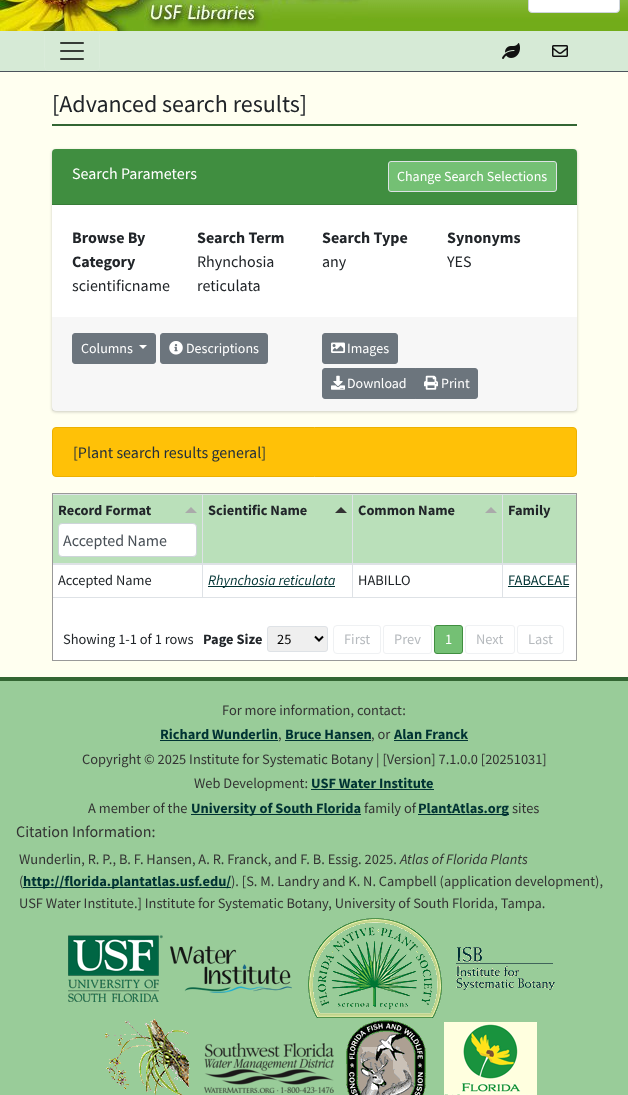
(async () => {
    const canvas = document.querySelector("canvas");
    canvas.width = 628;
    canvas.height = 1095;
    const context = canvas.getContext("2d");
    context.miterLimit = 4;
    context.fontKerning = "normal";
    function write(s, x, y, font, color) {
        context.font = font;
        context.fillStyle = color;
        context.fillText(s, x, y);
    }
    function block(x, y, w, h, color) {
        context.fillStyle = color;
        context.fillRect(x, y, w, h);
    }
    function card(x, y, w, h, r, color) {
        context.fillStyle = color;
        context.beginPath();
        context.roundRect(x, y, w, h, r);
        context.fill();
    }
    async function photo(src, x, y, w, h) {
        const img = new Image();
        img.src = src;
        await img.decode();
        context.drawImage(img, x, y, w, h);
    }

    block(0, 0, 628, 1095, "rgb(255, 255, 240)");
    await photo("media/1.png", 368, 0, 260, 31);
    await photo("media/2.png", 0, 0, 368, 31);
    context.fillStyle = "rgb(255, 255, 255)";
    context.beginPath();
    context.roundRect(528.5, -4.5, 91, 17, 3.5);
    context.fill();
    context.strokeStyle = "rgb(206, 212, 218)";
    context.stroke();
    block(0, 31, 628, 40, "rgb(214, 234, 214)");
    block(0, 71, 628, 1, "rgb(75, 84, 92)");
    context.beginPath();
    context.roundRect(44.5, 31.5, 55, 39, 3.5);
    context.strokeStyle = "rgb(218, 236, 218)";
    context.stroke();
    await photo("media/3.png", 60, 42, 24, 18);
    await photo("media/4.png", 502, 43, 18, 16);
    await photo("media/5.png", 552, 45, 16, 12);
    block(52, 124, 525, 2, "rgb(51, 102, 51)");
    write("[Advanced search results]", 52, 112, "24px Source Sans Pro", "rgb(33, 37, 41)");
    context.fillStyle = "rgba(0, 0, 0, 0.2)";
    context.filter = "blur(1.5px)";
    context.beginPath();
    context.roundRect(52, 150, 525, 262, 4);
    context.fill();
    context.filter = "none";
    context.fillStyle = "rgba(0, 0, 0, 0.12)";
    context.filter = "blur(0.5px)";
    context.beginPath();
    context.roundRect(52, 149, 525, 262, 4);
    context.fill();
    context.filter = "none";
    card(52, 149, 525, 262, 4, "rgb(255, 255, 255)");
    context.fillStyle = "rgb(64, 142, 64)";
    context.beginPath();
    context.roundRect(52, 149, 525, 56, [4, 4, 0, 0]);
    context.fill();
    block(52, 204, 525, 1, "rgb(56, 124, 56)");
    write("Search Parameters", 72, 179, "16px Source Sans Pro", "rgb(255, 255, 255)");
    context.fillStyle = "rgb(116, 192, 116)";
    context.beginPath();
    context.roundRect(388.5, 161.5, 168, 30, 2.5);
    context.fill();
    context.strokeStyle = "rgb(222, 226, 230)";
    context.stroke();
    write("Change Search Selections", 397, 181, "14px Source Sans Pro", "rgb(255, 255, 255)");
    write("Browse By", 72, 243, "bold 16px Source Sans Pro", "rgb(33, 37, 41)");
    write("Category", 72, 267, "bold 16px Source Sans Pro", "rgb(33, 37, 41)");
    write("scientificname", 72, 291, "16px Source Sans Pro", "rgb(33, 37, 41)");
    write("Search Term", 197, 243, "bold 16px Source Sans Pro", "rgb(33, 37, 41)");
    write("Rhynchosia", 197, 267, "16px Source Sans Pro", "rgb(33, 37, 41)");
    write("reticulata", 197, 291, "16px Source Sans Pro", "rgb(33, 37, 41)");
    write("Search Type", 322, 243, "bold 16px Source Sans Pro", "rgb(33, 37, 41)");
    write("any", 322, 267, "16px Source Sans Pro", "rgb(33, 37, 41)");
    write("Synonyms", 447, 243, "bold 16px Source Sans Pro", "rgb(33, 37, 41)");
    write("YES", 447, 267, "16px Source Sans Pro", "rgb(33, 37, 41)");
    block(52, 317, 525, 94, "rgba(0, 0, 0, 0.03)");
    context.fillStyle = "rgb(108, 117, 125)";
    context.beginPath();
    context.roundRect(72.5, 333.5, 83, 30, 2.5);
    context.fill();
    context.strokeStyle = "rgb(108, 117, 125)";
    context.stroke();
    write("Columns", 81, 353, "14px Source Sans Pro", "rgb(255, 255, 255)");
    context.beginPath();
    context.moveTo(139, 345);
    context.lineTo(147, 345);
    context.lineTo(143, 349);
    context.closePath();
    context.fill();
    context.fillStyle = "rgb(108, 117, 125)";
    context.beginPath();
    context.roundRect(160.5, 333.5, 107, 30, 2.5);
    context.fill();
    context.stroke();
    await photo("media/6.png", 169, 341, 14, 14);
    write("Descriptions", 186, 353, "14px Source Sans Pro", "rgb(255, 255, 255)");
    context.fillStyle = "rgb(108, 117, 125)";
    context.beginPath();
    context.roundRect(322.5, 333.5, 75, 30, 2.5);
    context.fill();
    context.stroke();
    await photo("media/7.png", 331, 342, 14, 11);
    write("Images", 347, 353, "14px Source Sans Pro", "rgb(255, 255, 255)");
    context.fillStyle = "rgb(108, 117, 125)";
    context.beginPath();
    context.roundRect(322.5, 368.5, 93, 30, [2.5, 0, 0, 2.5]);
    context.fill();
    context.stroke();
    await photo("media/8.png", 331, 375, 14, 15);
    write("Download", 347, 388, "14px Source Sans Pro", "rgb(255, 255, 255)");
    context.fillStyle = "rgb(108, 117, 125)";
    context.beginPath();
    context.roundRect(415.5, 368.5, 62, 30, [0, 2.5, 2.5, 0]);
    context.fill();
    context.stroke();
    await photo("media/9.png", 424, 375, 14, 15);
    write("Print", 441, 388, "14px Source Sans Pro", "rgb(255, 255, 255)");
    context.fillStyle = "rgb(255, 193, 7)";
    context.beginPath();
    context.roundRect(52.5, 427.5, 524, 49, 3.5);
    context.fill();
    context.strokeStyle = "rgb(237, 177, 0)";
    context.stroke();
    write("[Plant search results general]", 73, 458, "16px Source Sans Pro", "rgb(31, 45, 61)");
    block(53, 565, 523, 95, "rgb(255, 255, 255)");
    context.strokeStyle = "rgb(153, 153, 153)";
    context.strokeRect(52.5, 493.5, 524, 167);
    block(53, 495, 523, 68, "rgb(186, 224, 186)");
    block(53, 494, 523, 1, "rgb(222, 226, 230)");
    block(53, 563, 523, 2, "rgb(222, 226, 230)");
    block(202, 495, 1, 68, "rgb(222, 226, 230)");
    write("Record Format", 58, 515, "bold 14.4px Source Sans Pro", "rgb(33, 37, 41)");
    context.fillStyle = "rgb(170, 170, 170)";
    context.beginPath();
    context.moveTo(197, 513);
    context.lineTo(185, 513);
    context.lineTo(191, 507);
    context.closePath();
    context.fill();
    context.fillStyle = "rgb(255, 255, 255)";
    context.beginPath();
    context.roundRect(58.5, 523.5, 138, 33, 3.5);
    context.fill();
    context.strokeStyle = "rgb(206, 212, 218)";
    context.stroke();
    write("Accepted Name", 63, 546, "16px Source Sans Pro", "rgb(73, 80, 87)");
    block(352, 495, 1, 68, "rgb(222, 226, 230)");
    write("Scientific Name", 208, 515, "bold 14.4px Source Sans Pro", "rgb(33, 37, 41)");
    context.fillStyle = "rgb(51, 51, 51)";
    context.beginPath();
    context.moveTo(347, 513);
    context.lineTo(335, 513);
    context.lineTo(341, 507);
    context.closePath();
    context.fill();
    block(502, 495, 1, 68, "rgb(222, 226, 230)");
    write("Common Name", 358, 515, "bold 14.4px Source Sans Pro", "rgb(33, 37, 41)");
    context.fillStyle = "rgb(170, 170, 170)";
    context.beginPath();
    context.moveTo(497, 513);
    context.lineTo(485, 513);
    context.lineTo(491, 507);
    context.closePath();
    context.fill();
    write("Family", 508, 515, "bold 14.4px Source Sans Pro", "rgb(33, 37, 41)");
    block(53, 597, 523, 1, "rgb(222, 226, 230)");
    block(202, 565, 1, 32, "rgb(222, 226, 230)");
    write("Accepted Name", 58, 585, "14.4px Source Sans Pro", "rgb(33, 37, 41)");
    block(352, 565, 1, 32, "rgb(222, 226, 230)");
    block(208, 586, 127, 1, "rgb(0, 51, 51)");
    write("Rhynchosia reticulata", 208, 585, "italic 14.4px Source Sans Pro", "rgb(0, 51, 51)");
    block(502, 565, 1, 32, "rgb(222, 226, 230)");
    write("HABILLO", 358, 585, "14.4px Source Sans Pro", "rgb(33, 37, 41)");
    write("FABACEAE", 508, 585, "14.4px Source Sans Pro", "rgb(0, 51, 51)");
    block(508, 586, 61, 1, "rgb(0, 51, 51)");
    write("Showing 1-1 of 1 rows", 63, 644, "14.4px Source Sans Pro", "rgb(33, 37, 41)");
    write("Page Size", 203, 644, "bold 14.4px Source Sans Pro", "rgb(33, 37, 41)");
    context.fillStyle = "rgb(239, 239, 239)";
    context.beginPath();
    context.roundRect(267.5, 626.5, 60, 25, 2.5);
    context.fill();
    context.strokeStyle = "rgb(222, 226, 230)";
    context.stroke();
    context.beginPath();
    context.moveTo(315, 636.5);
    context.lineTo(319, 640.5);
    context.lineTo(323, 636.5);
    context.strokeStyle = "rgb(0, 0, 0)";
    context.lineWidth = 2;
    context.stroke();
    write("25", 277, 644, "14.4px Source Sans Pro", "rgb(0, 0, 0)");
    context.beginPath();
    context.roundRect(333.5, 625.5, 47, 28, [3.5, 2.5, 2.5, 3.5]);
    context.strokeStyle = "rgb(239, 241, 243)";
    context.lineWidth = 1;
    context.stroke();
    write("First", 344, 644, "14.4px Source Sans Pro", "rgb(182, 186, 190)");
    context.beginPath();
    context.roundRect(383.5, 625.5, 48, 28, 2.5);
    context.stroke();
    write("Prev", 394, 644, "14.4px Source Sans Pro", "rgb(182, 186, 190)");
    context.fillStyle = "rgb(116, 192, 116)";
    context.beginPath();
    context.roundRect(434.5, 625.5, 28, 28, 2.5);
    context.fill();
    context.strokeStyle = "rgb(64, 142, 64)";
    context.stroke();
    write("1", 445, 644, "14.4px Source Sans Pro", "rgb(255, 255, 255)");
    context.beginPath();
    context.roundRect(465.5, 625.5, 49, 28, 2.5);
    context.strokeStyle = "rgb(239, 241, 243)";
    context.stroke();
    write("Next", 476, 644, "14.4px Source Sans Pro", "rgb(182, 186, 190)");
    context.beginPath();
    context.roundRect(517.5, 625.5, 46, 28, [2.5, 3.5, 3.5, 2.5]);
    context.stroke();
    write("Last", 528, 644, "14.4px Source Sans Pro", "rgb(182, 186, 190)");
    block(0, 681, 628, 414, "rgb(153, 204, 153)");
    block(0, 677, 628, 4, "rgb(51, 102, 51)");
    write("For more information, contact:", 222, 715, "14.4px Source Sans Pro", "rgb(51, 51, 51)");
    write("Richard Wunderlin", 160, 739, "bold 14.4px Source Sans Pro", "rgb(0, 51, 51)");
    block(160, 740, 118, 1, "rgb(0, 51, 51)");
    write(",", 278, 739, "14.4px Source Sans Pro", "rgb(51, 51, 51)");
    write("Bruce Hansen", 285, 739, "bold 14.4px Source Sans Pro", "rgb(0, 51, 51)");
    block(285, 740, 86, 1, "rgb(0, 51, 51)");
    write(", or", 371, 739, "14.4px Source Sans Pro", "rgb(51, 51, 51)");
    write("Alan Franck", 394, 739, "bold 14.4px Source Sans Pro", "rgb(0, 51, 51)");
    block(394, 740, 74, 1, "rgb(0, 51, 51)");
    write("Copyright © 2025 Institute for Systematic Botany | [Version] 7.1.0.0 [20251031]", 82, 764, "14.4px Source Sans Pro", "rgb(51, 51, 51)");
    write("Web Development:", 194, 788, "14.4px Source Sans Pro", "rgb(51, 51, 51)");
    write("USF Water Institute", 311, 788, "bold 14.4px Source Sans Pro", "rgb(0, 51, 51)");
    block(311, 789, 123, 1, "rgb(0, 51, 51)");
    write("A member of the", 88, 813, "14.4px Source Sans Pro", "rgb(51, 51, 51)");
    block(191, 814, 170, 1, "rgb(0, 51, 51)");
    write("University of South Florida", 191, 813, "bold 14.4px Source Sans Pro", "rgb(0, 51, 51)");
    write("family of", 364, 813, "14.4px Source Sans Pro", "rgb(51, 51, 51)");
    block(418, 814, 91, 1, "rgb(0, 51, 51)");
    write("PlantAtlas.org", 418, 813, "bold 14.4px Source Sans Pro", "rgb(0, 51, 51)");
    write("sites", 512, 813, "14.4px Source Sans Pro", "rgb(51, 51, 51)");
    write("Citation Information:", 16, 837, "16px Source Sans Pro", "rgb(51, 51, 51)");
    write("Wunderlin, R. P., B. F. Hansen, A. R. Franck, and F. B. Essig. 2025.", 19, 864, "14.4px Source Sans Pro", "rgb(51, 51, 51)");
    write("Atlas of Florida Plants", 400, 864, "italic 14.4px Source Sans Pro", "rgb(51, 51, 51)");
    write("(", 19, 886, "14.4px Source Sans Pro", "rgb(51, 51, 51)");
    block(23, 887, 208, 1, "rgb(0, 51, 51)");
    write("http://florida.plantatlas.usf.edu/", 23, 886, "bold 14.4px Source Sans Pro", "rgb(0, 51, 51)");
    write("). [S. M. Landry and K. N. Campbell (application development),", 231, 886, "14.4px Source Sans Pro", "rgb(51, 51, 51)");
    write("USF Water Institute.] Institute for Systematic Botany, University of South Florida, Tampa.", 19, 908, "14.4px Source Sans Pro", "rgb(51, 51, 51)");
    await photo("media/10.png", 68, 935, 224, 68);
    await photo("media/11.png", 308, 918, 134, 100);
    await photo("media/12.png", 456, 947, 99, 43);
    await photo("media/13.png", 105, 1019, 85, 76);
    await photo("media/14.png", 204, 1043, 130, 50);
    await photo("media/15.png", 346, 1020, 80, 75);
    await photo("media/16.png", 444, 1022, 93, 73);
})();
